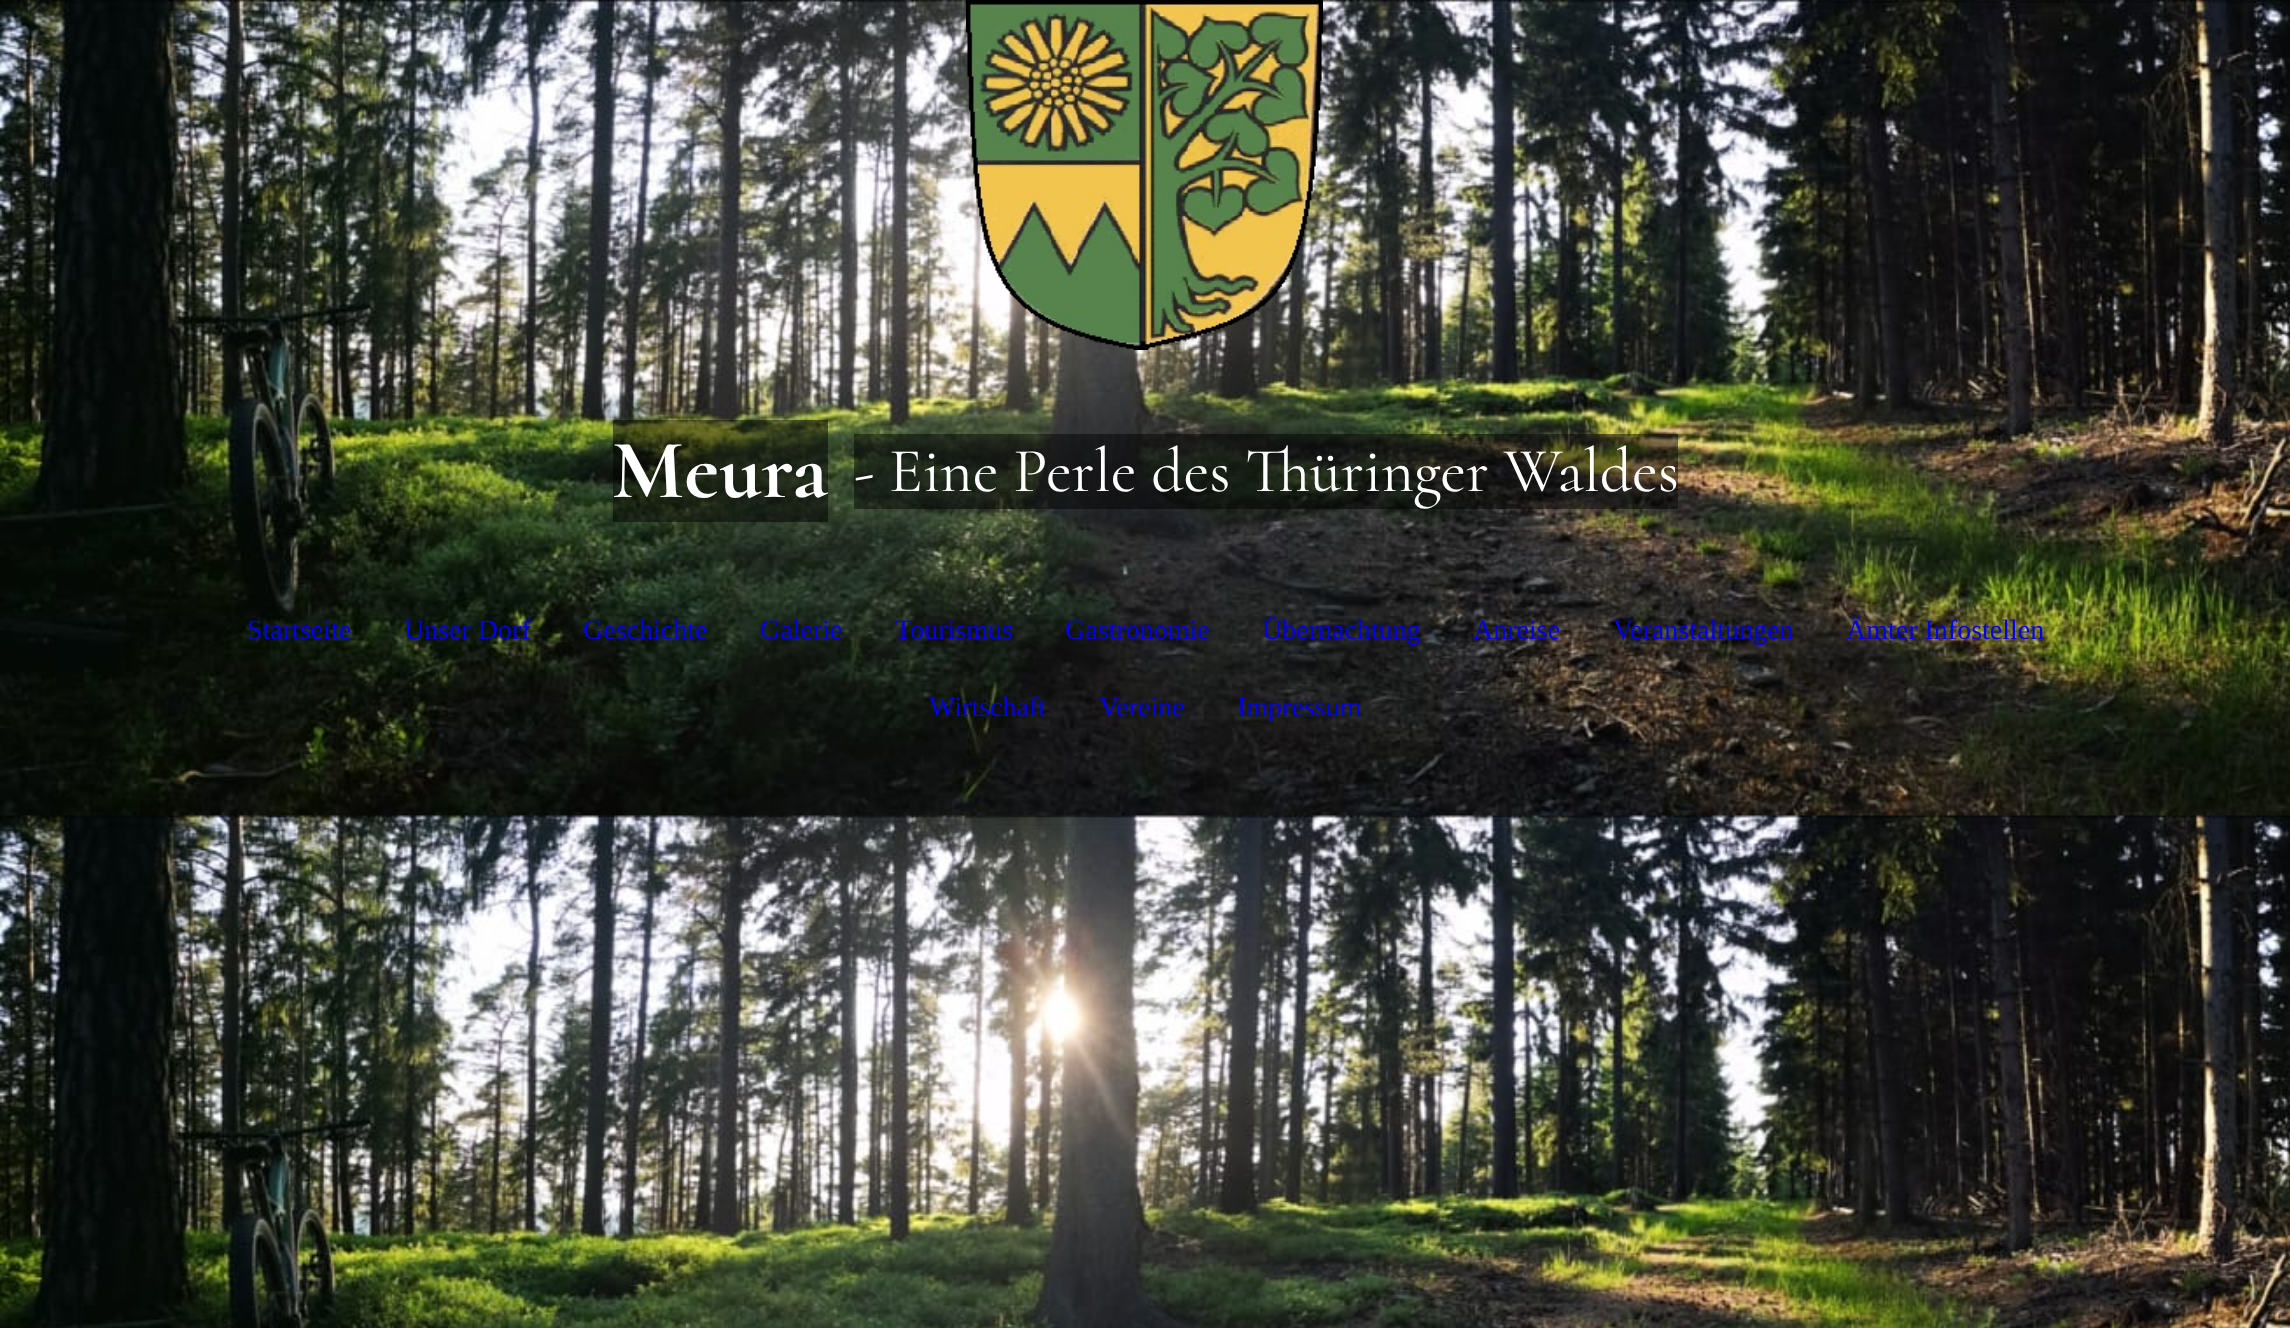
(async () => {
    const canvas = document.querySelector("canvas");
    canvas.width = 2290;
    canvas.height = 1328;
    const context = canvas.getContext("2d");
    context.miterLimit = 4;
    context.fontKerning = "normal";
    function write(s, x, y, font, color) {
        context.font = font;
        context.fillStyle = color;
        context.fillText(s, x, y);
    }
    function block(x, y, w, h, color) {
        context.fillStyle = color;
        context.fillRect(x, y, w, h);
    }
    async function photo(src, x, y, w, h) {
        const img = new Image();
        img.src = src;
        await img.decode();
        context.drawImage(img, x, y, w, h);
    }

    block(0, 0, 2290, 1328, "rgb(255, 255, 255)");
    await photo("media/1.png", 0, 0, 2290, 1328);
    await photo("media/2.png", 966, 0, 357, 350);
    block(613, 420, 215, 102, "rgba(0, 0, 0, 0.5)");
    write("Meura", 612, 497, "bold 84px Cormorant", "rgb(255, 255, 255)");
    block(854, 434, 824, 75, "rgba(0, 0, 0, 0.47)");
    write("- Eine Perle des Thüringer Waldes", 854, 491, "63px Cormorant", "rgb(255, 255, 255)");
    write("Startseite", 247, 639, "28px Liberation Serif", "rgb(0, 0, 238)");
    write("Unser Dorf", 404, 639, "28px Liberation Serif", "rgb(0, 0, 238)");
    write("Geschichte", 583, 639, "28px Liberation Serif", "rgb(0, 0, 238)");
    write("Galerie", 760, 639, "28px Liberation Serif", "rgb(0, 0, 238)");
    write("Tourismus", 895, 639, "28px Liberation Serif", "rgb(0, 0, 238)");
    write("Gastronomie", 1065, 639, "28px Liberation Serif", "rgb(0, 0, 238)");
    write("Übernachtung", 1262, 639, "28px Liberation Serif", "rgb(0, 0, 238)");
    write("Anreise", 1473, 639, "28px Liberation Serif", "rgb(0, 0, 238)");
    write("Veranstaltungen", 1613, 639, "28px Liberation Serif", "rgb(0, 0, 238)");
    write("Ämter Infostellen", 1846, 639, "28px Liberation Serif", "rgb(0, 0, 238)");
    write("Wirtschaft", 929, 716, "28px Liberation Serif", "rgb(0, 0, 238)");
    write("Vereine", 1099, 716, "28px Liberation Serif", "rgb(0, 0, 238)");
    write("Impressum", 1237, 716, "28px Liberation Serif", "rgb(0, 0, 238)");
})();
